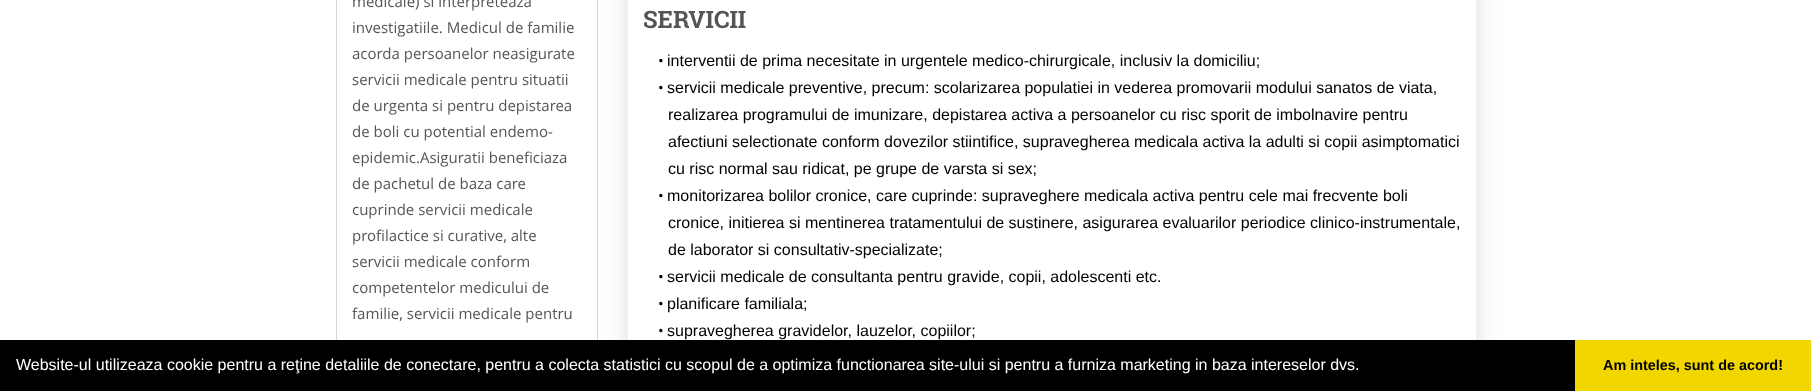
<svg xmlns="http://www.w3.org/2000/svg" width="1811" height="391">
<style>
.a{font:15px Open Sans;fill:#555}
.b{font:bold 24px Roboto Slab;fill:#555}
.c{font:15px Open Sans;fill:#000}
.d{font:16px Liberation Sans;fill:#000}
.e{font:16px Liberation Sans;fill:#fff}
.f{font:bold 14.4px Liberation Sans;fill:#000}
</style>
<defs>
<clipPath id="clip1"><path d="M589 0h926v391h-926zm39-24h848v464h-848z" clip-rule="evenodd"/></clipPath>
</defs>
<rect width="100%" height="100%" fill="#fff"/>
<path fill="none" stroke="#d6d6d6" d="M336.5 -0.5h261v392H336.5z"/>
<g clip-path="url(#clip1)">
<path fill="#ddd" filter="blur(12.5px)" d="M628 -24h848v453H628z"/>
</g>
<path fill="#000" d="M0 340h1575v51H0z"/>
<path fill="#f1d600" d="M1575 340h236v51H1575z"/>
<text class="a" x="352" y="7">medicale) si interpreteaza</text>
<text class="a" x="352" y="33">investigatiile. Medicul de familie</text>
<text class="a" x="352" y="59">acorda persoanelor neasigurate</text>
<text class="a" x="352" y="85">servicii medicale pentru situatii</text>
<text class="a" x="352" y="111">de urgenta si pentru depistarea</text>
<text class="a" x="352" y="137">de boli cu potential endemo-</text>
<text class="a" x="352" y="163">epidemic.Asiguratii beneficiaza</text>
<text class="a" x="352" y="189">de pachetul de baza care</text>
<text class="a" x="352" y="215">cuprinde servicii medicale</text>
<text class="a" x="352" y="241">profilactice si curative, alte</text>
<text class="a" x="352" y="267">servicii medicale conform</text>
<text class="a" x="352" y="293">competentelor medicului de</text>
<text class="a" x="352" y="319">familie, servicii medicale pentru</text>
<text class="b" x="643" y="28">SERVICII</text>
<text class="c" x="658" y="66">•</text>
<text class="d" x="667" y="66">interventii de prima necesitate in urgentele medico-chirurgicale, inclusiv la domiciliu;</text>
<text class="c" x="658" y="93">•</text>
<text class="d" x="667" y="93">servicii medicale preventive, precum: scolarizarea populatiei in vederea promovarii modului sanatos de viata,</text>
<text class="d" x="668" y="120">realizarea programului de imunizare, depistarea activa a persoanelor cu risc sporit de imbolnavire pentru</text>
<text class="d" x="668" y="147">afectiuni selectionate conform dovezilor stiintifice, supravegherea medicala activa la adulti si copii asimptomatici</text>
<text class="d" x="668" y="174">cu risc normal sau ridicat, pe grupe de varsta si sex;</text>
<text class="c" x="658" y="201">•</text>
<text class="d" x="667" y="201">monitorizarea bolilor cronice, care cuprinde: supraveghere medicala activa pentru cele mai frecvente boli</text>
<text class="d" x="668" y="228">cronice, initierea si mentinerea tratamentului de sustinere, asigurarea evaluarilor periodice clinico-instrumentale,</text>
<text class="d" x="668" y="255">de laborator si consultativ-specializate;</text>
<text class="c" x="658" y="282">•</text>
<text class="d" x="667" y="282">servicii medicale de consultanta pentru gravide, copii, adolescenti etc.</text>
<text class="c" x="658" y="309">•</text>
<text class="d" x="667" y="309">planificare familiala;</text>
<text class="c" x="658" y="336">•</text>
<text class="d" x="667" y="336">supravegherea gravidelor, lauzelor, copiilor;</text>
<text class="e" x="16" y="370">Website-ul utilizeaza cookie pentru a reţine detaliile de conectare, pentru a colecta statistici cu scopul de a optimiza functionarea site-ului si pentru a furniza marketing in baza intereselor dvs.</text>
<text class="f" x="1603" y="370">Am inteles, sunt de acord!</text>
</svg>
